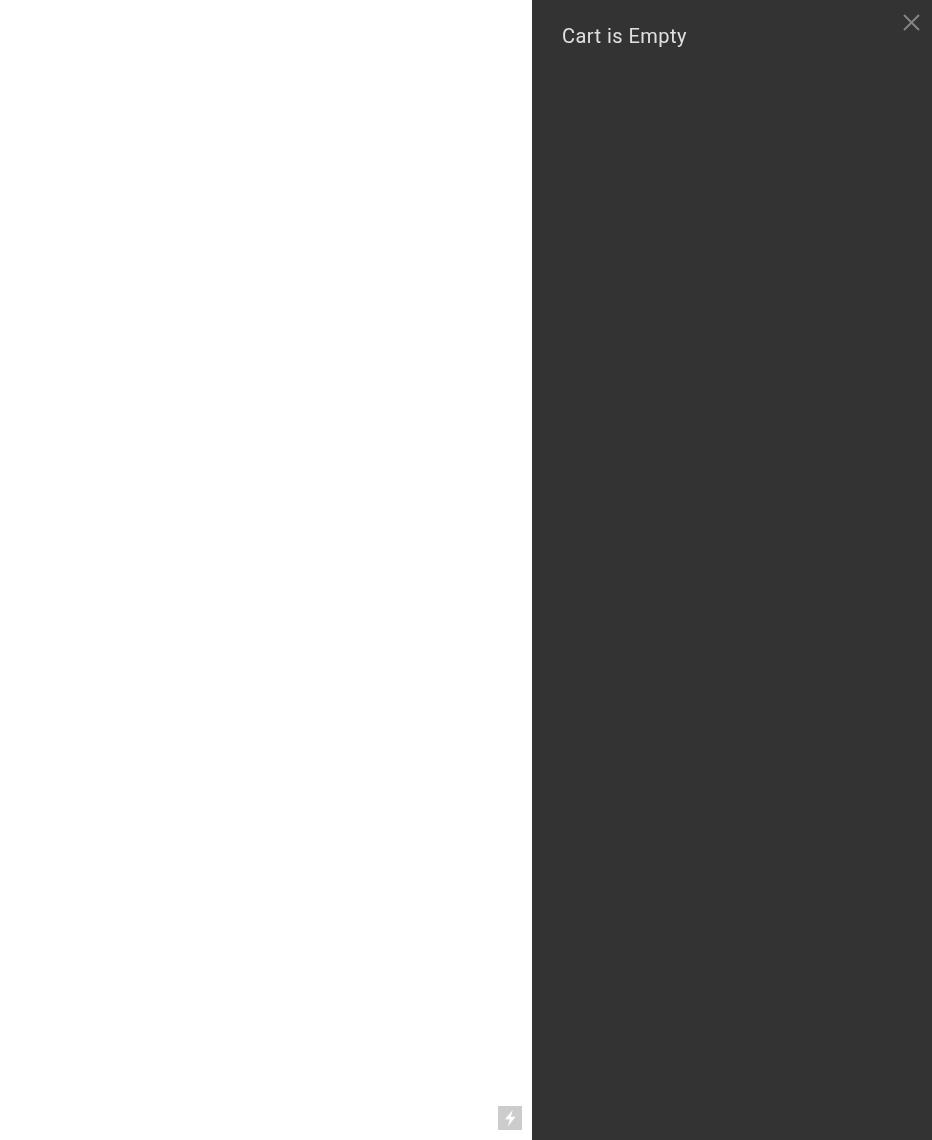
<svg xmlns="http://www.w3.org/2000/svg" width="932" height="1140">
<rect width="100%" height="100%" fill="#fff"/>
<path fill="#ccc" d="M498 1106h24v24H498z"/>
<image href="1.png" x="505" y="1110" width="11" height="16"/>
<path fill="#333" d="M532 0h400v1140H532z"/>
<image href="2.png" x="563" y="14" width="357" height="33"/>
</svg>
